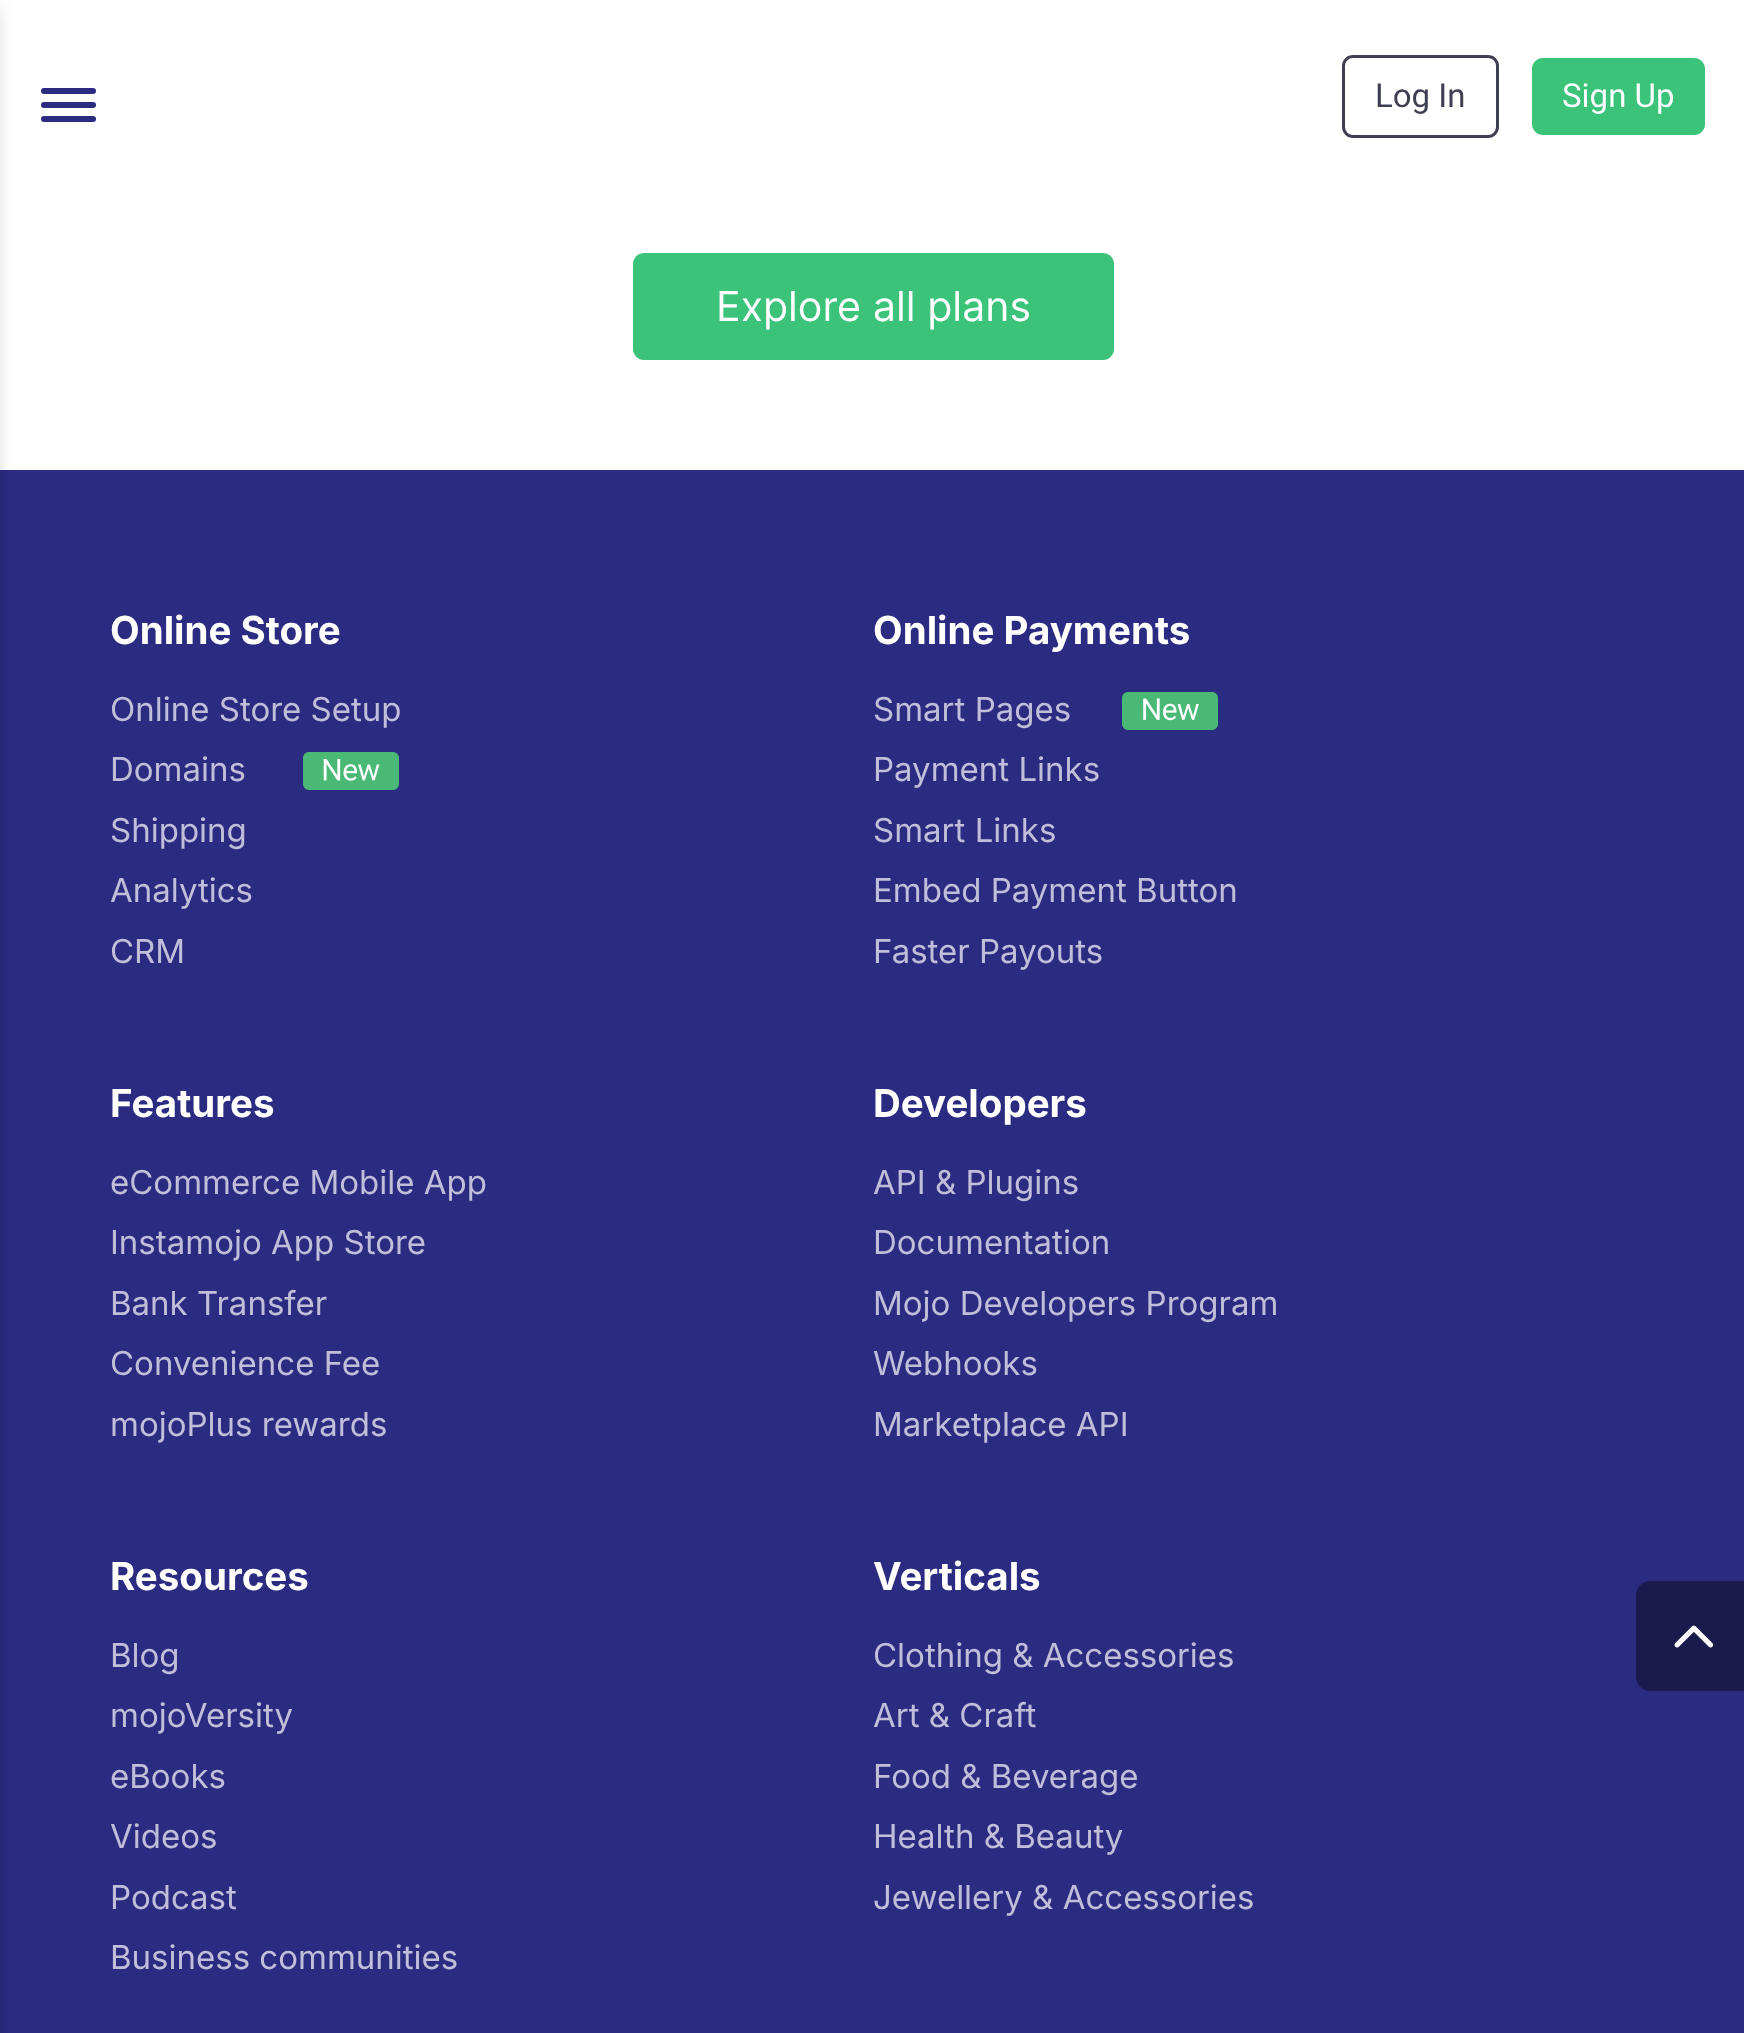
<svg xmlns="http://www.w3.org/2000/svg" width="1744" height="2033">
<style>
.a{font:33px Roboto;fill:#3f3f52}
.b{font:33px Roboto;fill:#fff}
.c{font:41.25px Inter;fill:#fff}
.d{font:bold 38.5px Inter;fill:#fff}
.e{font:33px 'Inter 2';fill:#bfbfd9}
</style>
<rect width="100%" height="100%" fill="#fff"/>
<path fill="#2b2b81" d="M0 470h1744v1563H0z"/>
<path fill="#0000001f" filter="blur(8px)" d="M-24 8h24v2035H-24z"/>
<rect fill="#2b2b81" x="41" y="102" width="55" height="6" rx="3"/>
<rect fill="#2b2b81" x="41" y="88" width="55" height="6" rx="3"/>
<rect fill="#2b2b81" x="41" y="116" width="55" height="6" rx="3"/>
<rect fill="none" stroke="#3f3f52" stroke-width="3" x="1343.5" y="56.5" width="154" height="80" rx="9.5"/>
<rect fill="#3ac379" x="1532" y="58" width="173" height="77" rx="11"/>
<rect fill="#3ac379" x="633" y="253" width="481" height="107" rx="11"/>
<image href="1.png" x="303" y="752" width="96" height="38"/>
<image href="2.png" x="1122" y="692" width="96" height="38"/>
<path fill="#1a1a4d" d="M1650 1581h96v110h-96c-7.5 0-14-6.5-14-14v-82c0-7.5 6.5-14 14-14z"/>
<image href="3.png" x="1674" y="1625" width="40" height="23"/>
<text class="a" x="1375" y="107">Log In</text>
<text class="b" x="1562" y="107">Sign Up</text>
<text class="c" x="716" y="321">Explore all plans</text>
<text class="d" x="110" y="644">Online Store</text>
<text class="e" x="110" y="721">Online Store Setup</text>
<text class="e" x="110" y="781">Domains</text>
<text class="e" x="110" y="842">Shipping</text>
<text class="e" x="110" y="902">Analytics</text>
<text class="e" x="110" y="963">CRM</text>
<text class="d" x="873" y="644">Online Payments</text>
<text class="e" x="873" y="721">Smart Pages</text>
<text class="e" x="873" y="781">Payment Links</text>
<text class="e" x="873" y="842">Smart Links</text>
<text class="e" x="873" y="902">Embed Payment Button</text>
<text class="e" x="873" y="963">Faster Payouts</text>
<text class="d" x="110" y="1117">Features</text>
<text class="e" x="110" y="1194">eCommerce Mobile App</text>
<text class="e" x="110" y="1254">Instamojo App Store</text>
<text class="e" x="110" y="1315">Bank Transfer</text>
<text class="e" x="110" y="1375">Convenience Fee</text>
<text class="e" x="110" y="1436">mojoPlus rewards</text>
<text class="d" x="873" y="1117">Developers</text>
<text class="e" x="873" y="1194">API &amp; Plugins</text>
<text class="e" x="873" y="1254">Documentation</text>
<text class="e" x="873" y="1315">Mojo Developers Program</text>
<text class="e" x="873" y="1375">Webhooks</text>
<text class="e" x="873" y="1436">Marketplace API</text>
<text class="d" x="110" y="1590">Resources</text>
<text class="e" x="110" y="1667">Blog</text>
<text class="e" x="110" y="1727">mojoVersity</text>
<text class="e" x="110" y="1788">eBooks</text>
<text class="e" x="110" y="1848">Videos</text>
<text class="e" x="110" y="1909">Podcast</text>
<text class="e" x="110" y="1969">Business communities</text>
<text class="d" x="873" y="1590">Verticals</text>
<text class="e" x="873" y="1667">Clothing &amp; Accessories</text>
<text class="e" x="873" y="1727">Art &amp; Craft</text>
<text class="e" x="873" y="1788">Food &amp; Beverage</text>
<text class="e" x="873" y="1848">Health &amp; Beauty</text>
<text class="e" x="873" y="1909">Jewellery &amp; Accessories</text>
</svg>
